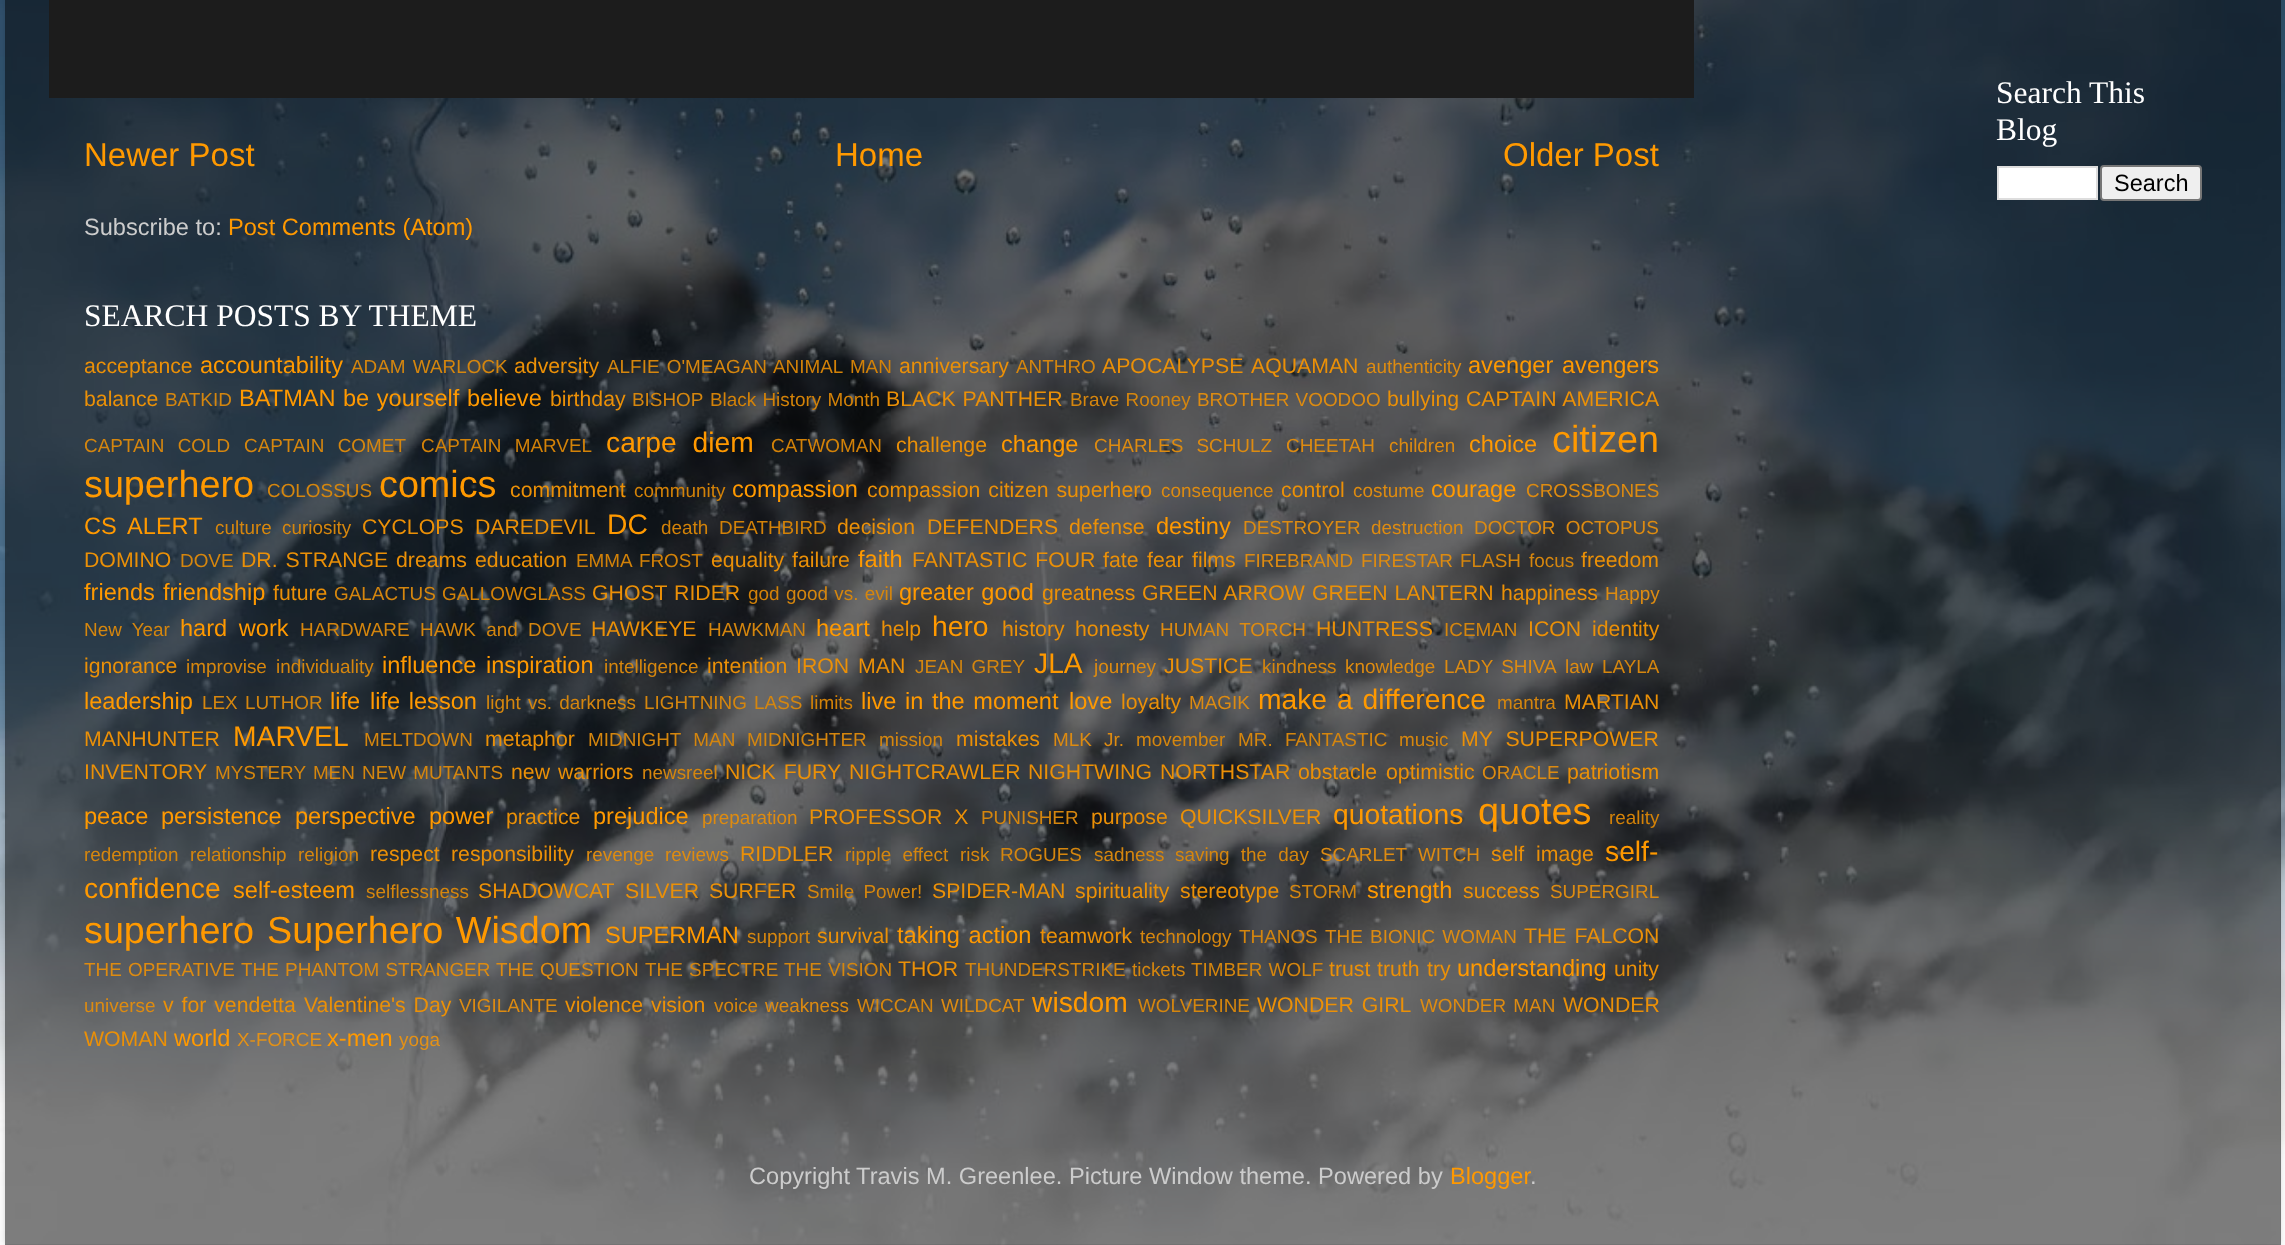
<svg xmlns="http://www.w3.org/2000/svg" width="2285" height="1245">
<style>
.a{font:33px Liberation Sans;fill:#f90}
.b{font:23.6px Liberation Sans;fill:#ccc}
.c{font:23.6px Liberation Sans;fill:#f90}
.d{font:31.5px Liberation Serif;fill:#fff}
.e{font:21.25px Liberation Sans;fill:#eb9007}
.f{font:18.9px Liberation Sans;fill:#d5860e}
.g{font:18.9px Liberation Sans;fill:#d38208}
.h{font:18.9px Liberation Sans;fill:#dd8b11}
.i{font:28.25px Liberation Sans;fill:#f90}
.j{font:37.75px Liberation Sans;fill:#f90}
.k{font:18.9px Liberation Sans;fill:#e39117}
.l{font:23.5px Liberation Sans;fill:#000}
</style>
<defs>
<clipPath id="clip1"><path d="M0 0h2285v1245h-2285zm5-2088h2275v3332h-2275z" clip-rule="evenodd"/></clipPath>
</defs>
<rect width="100%" height="100%" fill="#fff"/>
<image href="1.png" x="0" y="0" width="2285" height="1245"/>
<g clip-path="url(#clip1)">
<path fill="#00000026" filter="blur(2.5px)" d="M5 -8h2275v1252H5z"/>
</g>
<path fill="#00000080" d="M5 0h2276v1245H5z"/>
<path fill="#1c1c1c" d="M49 0h1645v98H49z"/>
<path fill="#fff" stroke="#ddd" stroke-width="2" d="M1998 167h99v32H1998z"/>
<rect fill="#efefef" stroke="#767676" stroke-width="2" x="2101" y="166" width="100" height="34" rx="3"/>
<text class="a" x="84" y="166">Newer Post</text>
<text class="a" x="835" y="166">Home</text>
<text class="a" x="1503" y="166">Older Post</text>
<text class="b" x="84" y="235">Subscribe to:</text>
<text class="c" x="228" y="235">Post Comments (Atom)</text>
<text class="d" x="84" y="326">SEARCH POSTS BY THEME</text>
<text class="e" x="84" y="373">acceptance</text>
<text class="c" x="200" y="373">accountability</text>
<text class="f" x="351" y="373" word-spacing="2">ADAM WARLOCK</text>
<text class="e" x="514" y="373">adversity</text>
<text class="f" x="607" y="373" word-spacing="2">ALFIE O'MEAGAN</text>
<text class="g" x="773" y="373" word-spacing="2">ANIMAL MAN</text>
<text class="e" x="899" y="373">anniversary</text>
<text class="f" x="1016" y="373">ANTHRO</text>
<text class="e" x="1102" y="373">APOCALYPSE</text>
<text class="e" x="1251" y="373">AQUAMAN</text>
<text class="h" x="1366" y="373">authenticity</text>
<text class="c" x="1468" y="373">avenger</text>
<text class="c" x="1562" y="373">avengers</text>
<text class="e" x="84" y="406">balance</text>
<text class="f" x="165" y="406">BATKID</text>
<text class="c" x="239" y="406">BATMAN</text>
<text class="c" x="343" y="406" word-spacing="1">be yourself</text>
<text class="c" x="467" y="406">believe</text>
<text class="e" x="550" y="406">birthday</text>
<text class="f" x="632" y="406">BISHOP</text>
<text class="g" x="710" y="406" word-spacing="1">Black History Month</text>
<text class="e" x="886" y="406" word-spacing="1">BLACK PANTHER</text>
<text class="f" x="1070" y="406" word-spacing="1">Brave Rooney</text>
<text class="h" x="1197" y="406" word-spacing="1">BROTHER VOODOO</text>
<text class="e" x="1387" y="406">bullying</text>
<text class="e" x="1466" y="406" word-spacing="1">CAPTAIN AMERICA</text>
<text class="f" x="84" y="452" word-spacing="8">CAPTAIN COLD</text>
<text class="f" x="244" y="452" word-spacing="8">CAPTAIN COMET</text>
<text class="g" x="421" y="452" word-spacing="8">CAPTAIN MARVEL</text>
<text class="i" x="606" y="452" word-spacing="8">carpe diem</text>
<text class="g" x="771" y="452">CATWOMAN</text>
<text class="e" x="896" y="452">challenge</text>
<text class="c" x="1001" y="452">change</text>
<text class="h" x="1094" y="452" word-spacing="8">CHARLES SCHULZ</text>
<text class="h" x="1286" y="452">CHEETAH</text>
<text class="h" x="1389" y="452">children</text>
<text class="c" x="1469" y="452">choice</text>
<text class="j" x="1552" y="452">citizen</text>
<text class="j" x="84" y="497">superhero</text>
<text class="f" x="267" y="497">COLOSSUS</text>
<text class="j" x="379" y="497">comics</text>
<text class="e" x="510" y="497">commitment</text>
<text class="g" x="634" y="497">community</text>
<text class="c" x="732" y="497">compassion</text>
<text class="e" x="867" y="497" word-spacing="2">compassion citizen superhero</text>
<text class="h" x="1161" y="497">consequence</text>
<text class="e" x="1281" y="497">control</text>
<text class="h" x="1353" y="497">costume</text>
<text class="c" x="1431" y="497">courage</text>
<text class="h" x="1526" y="497">CROSSBONES</text>
<text class="c" x="84" y="534" word-spacing="5">CS ALERT</text>
<text class="f" x="215" y="534">culture</text>
<text class="f" x="282" y="534">curiosity</text>
<text class="e" x="362" y="534">CYCLOPS</text>
<text class="e" x="475" y="534">DAREDEVIL</text>
<text class="i" x="607" y="534">DC</text>
<text class="g" x="661" y="534">death</text>
<text class="g" x="719" y="534">DEATHBIRD</text>
<text class="e" x="837" y="534">decision</text>
<text class="e" x="927" y="534">DEFENDERS</text>
<text class="e" x="1069" y="534">defense</text>
<text class="c" x="1156" y="534">destiny</text>
<text class="h" x="1243" y="534">DESTROYER</text>
<text class="h" x="1371" y="534">destruction</text>
<text class="h" x="1474" y="534" word-spacing="5">DOCTOR OCTOPUS</text>
<text class="e" x="84" y="567">DOMINO</text>
<text class="f" x="180" y="567">DOVE</text>
<text class="e" x="241" y="567" word-spacing="2">DR. STRANGE</text>
<text class="e" x="396" y="567">dreams</text>
<text class="e" x="475" y="567">education</text>
<text class="g" x="576" y="567" word-spacing="2">EMMA FROST</text>
<text class="e" x="711" y="567">equality</text>
<text class="e" x="792" y="567">failure</text>
<text class="c" x="858" y="567">faith</text>
<text class="e" x="912" y="567" word-spacing="2">FANTASTIC FOUR</text>
<text class="e" x="1103" y="567">fate</text>
<text class="e" x="1147" y="567">fear</text>
<text class="e" x="1192" y="567">films</text>
<text class="h" x="1244" y="567">FIREBRAND</text>
<text class="h" x="1361" y="567">FIRESTAR</text>
<text class="f" x="1460" y="567">FLASH</text>
<text class="f" x="1529" y="567">focus</text>
<text class="e" x="1581" y="567">freedom</text>
<text class="c" x="84" y="600">friends</text>
<text class="c" x="163" y="600">friendship</text>
<text class="e" x="273" y="600">future</text>
<text class="f" x="334" y="600">GALACTUS</text>
<text class="g" x="442" y="600">GALLOWGLASS</text>
<text class="e" x="592" y="600" word-spacing="1">GHOST RIDER</text>
<text class="g" x="748" y="600">god</text>
<text class="f" x="786" y="600" word-spacing="1">good vs. evil</text>
<text class="c" x="899" y="600" word-spacing="1">greater good</text>
<text class="e" x="1042" y="600">greatness</text>
<text class="e" x="1142" y="600" word-spacing="1">GREEN ARROW</text>
<text class="e" x="1312" y="600" word-spacing="1">GREEN LANTERN</text>
<text class="e" x="1501" y="600">happiness</text>
<text class="h" x="1605" y="600">Happy</text>
<text class="f" x="84" y="636" word-spacing="5">New Year</text>
<text class="c" x="180" y="636" word-spacing="5">hard work</text>
<text class="f" x="300" y="636">HARDWARE</text>
<text class="f" x="420" y="636" word-spacing="5">HAWK and DOVE</text>
<text class="e" x="591" y="636">HAWKEYE</text>
<text class="f" x="708" y="636">HAWKMAN</text>
<text class="c" x="816" y="636">heart</text>
<text class="e" x="881" y="636">help</text>
<text class="i" x="932" y="636">hero</text>
<text class="e" x="1002" y="636">history</text>
<text class="e" x="1075" y="636">honesty</text>
<text class="h" x="1160" y="636" word-spacing="5">HUMAN TORCH</text>
<text class="e" x="1316" y="636">HUNTRESS</text>
<text class="f" x="1444" y="636">ICEMAN</text>
<text class="e" x="1528" y="636">ICON</text>
<text class="e" x="1592" y="636">identity</text>
<text class="e" x="84" y="673">ignorance</text>
<text class="f" x="186" y="673">improvise</text>
<text class="f" x="276" y="673">individuality</text>
<text class="c" x="382" y="673">influence</text>
<text class="c" x="486" y="673">inspiration</text>
<text class="f" x="604" y="673">intelligence</text>
<text class="e" x="707" y="673">intention</text>
<text class="e" x="796" y="673" word-spacing="3">IRON MAN</text>
<text class="f" x="915" y="673" word-spacing="3">JEAN GREY</text>
<text class="i" x="1034" y="673">JLA</text>
<text class="h" x="1094" y="673">journey</text>
<text class="e" x="1164" y="673">JUSTICE</text>
<text class="f" x="1262" y="673">kindness</text>
<text class="h" x="1345" y="673">knowledge</text>
<text class="h" x="1444" y="673" word-spacing="3">LADY SHIVA</text>
<text class="h" x="1565" y="673">law</text>
<text class="f" x="1602" y="673">LAYLA</text>
<text class="c" x="84" y="709">leadership</text>
<text class="f" x="202" y="709" word-spacing="2">LEX LUTHOR</text>
<text class="c" x="330" y="709">life</text>
<text class="c" x="370" y="709" word-spacing="2">life lesson</text>
<text class="f" x="486" y="709" word-spacing="2">light vs. darkness</text>
<text class="f" x="644" y="709" word-spacing="2">LIGHTNING LASS</text>
<text class="g" x="810" y="709">limits</text>
<text class="c" x="861" y="709" word-spacing="2">live in the moment</text>
<text class="c" x="1069" y="709">love</text>
<text class="e" x="1121" y="709">loyalty</text>
<text class="h" x="1189" y="709">MAGIK</text>
<text class="i" x="1258" y="709" word-spacing="2">make a difference</text>
<text class="f" x="1497" y="709">mantra</text>
<text class="e" x="1564" y="709">MARTIAN</text>
<text class="e" x="84" y="746">MANHUNTER</text>
<text class="i" x="233" y="746">MARVEL</text>
<text class="f" x="364" y="746">MELTDOWN</text>
<text class="e" x="485" y="746">metaphor</text>
<text class="f" x="588" y="746" word-spacing="7">MIDNIGHT MAN</text>
<text class="f" x="747" y="746">MIDNIGHTER</text>
<text class="f" x="879" y="746">mission</text>
<text class="e" x="956" y="746">mistakes</text>
<text class="h" x="1053" y="746" word-spacing="7">MLK Jr.</text>
<text class="f" x="1136" y="746">movember</text>
<text class="f" x="1238" y="746" word-spacing="7">MR. FANTASTIC</text>
<text class="f" x="1399" y="746">music</text>
<text class="e" x="1461" y="746" word-spacing="7">MY SUPERPOWER</text>
<text class="e" x="84" y="779">INVENTORY</text>
<text class="f" x="215" y="779" word-spacing="2">MYSTERY MEN</text>
<text class="f" x="362" y="779" word-spacing="2">NEW MUTANTS</text>
<text class="e" x="511" y="779" word-spacing="2">new warriors</text>
<text class="f" x="642" y="779">newsreel</text>
<text class="e" x="725" y="779" word-spacing="2">NICK FURY</text>
<text class="e" x="849" y="779">NIGHTCRAWLER</text>
<text class="e" x="1028" y="779">NIGHTWING</text>
<text class="e" x="1160" y="779">NORTHSTAR</text>
<text class="e" x="1298" y="779">obstacle</text>
<text class="e" x="1386" y="779">optimistic</text>
<text class="h" x="1482" y="779">ORACLE</text>
<text class="e" x="1567" y="779">patriotism</text>
<text class="c" x="84" y="824">peace</text>
<text class="c" x="161" y="824">persistence</text>
<text class="c" x="295" y="824">perspective</text>
<text class="c" x="429" y="824">power</text>
<text class="e" x="506" y="824">practice</text>
<text class="c" x="593" y="824">prejudice</text>
<text class="h" x="702" y="824">preparation</text>
<text class="e" x="809" y="824" word-spacing="6">PROFESSOR X</text>
<text class="f" x="981" y="824">PUNISHER</text>
<text class="e" x="1091" y="824">purpose</text>
<text class="e" x="1180" y="824">QUICKSILVER</text>
<text class="i" x="1333" y="824">quotations</text>
<text class="j" x="1478" y="824">quotes</text>
<text class="g" x="1609" y="824">reality</text>
<text class="f" x="84" y="861">redemption</text>
<text class="f" x="190" y="861">relationship</text>
<text class="f" x="298" y="861">religion</text>
<text class="e" x="370" y="861">respect</text>
<text class="e" x="451" y="861">responsibility</text>
<text class="h" x="586" y="861">revenge</text>
<text class="h" x="665" y="861">reviews</text>
<text class="e" x="740" y="861">RIDDLER</text>
<text class="f" x="845" y="861" word-spacing="6">ripple effect</text>
<text class="f" x="960" y="861">risk</text>
<text class="f" x="1000" y="861">ROGUES</text>
<text class="f" x="1094" y="861">sadness</text>
<text class="f" x="1175" y="861" word-spacing="6">saving the day</text>
<text class="h" x="1320" y="861" word-spacing="6">SCARLET WITCH</text>
<text class="e" x="1491" y="861" word-spacing="6">self image</text>
<text class="i" x="1605" y="861">self-</text>
<text class="i" x="84" y="898">confidence</text>
<text class="c" x="233" y="898">self-esteem</text>
<text class="f" x="366" y="898">selflessness</text>
<text class="e" x="478" y="898">SHADOWCAT</text>
<text class="e" x="625" y="898" word-spacing="4">SILVER SURFER</text>
<text class="f" x="807" y="898" word-spacing="4">Smile Power!</text>
<text class="e" x="932" y="898">SPIDER-MAN</text>
<text class="e" x="1075" y="898">spirituality</text>
<text class="e" x="1180" y="898">stereotype</text>
<text class="f" x="1289" y="898">STORM</text>
<text class="c" x="1367" y="898">strength</text>
<text class="e" x="1463" y="898">success</text>
<text class="h" x="1550" y="898">SUPERGIRL</text>
<text class="j" x="84" y="943">superhero</text>
<text class="j" x="267" y="943" word-spacing="2">Superhero Wisdom</text>
<text class="c" x="605" y="943">SUPERMAN</text>
<text class="f" x="747" y="943">support</text>
<text class="e" x="817" y="943">survival</text>
<text class="c" x="897" y="943" word-spacing="2">taking action</text>
<text class="e" x="1040" y="943">teamwork</text>
<text class="f" x="1140" y="943">technology</text>
<text class="f" x="1239" y="943">THANOS</text>
<text class="h" x="1325" y="943" word-spacing="2">THE BIONIC WOMAN</text>
<text class="e" x="1524" y="943" word-spacing="2">THE FALCON</text>
<text class="h" x="84" y="976" word-spacing="1">THE OPERATIVE</text>
<text class="h" x="241" y="976" word-spacing="1">THE PHANTOM STRANGER</text>
<text class="h" x="496" y="976" word-spacing="1">THE QUESTION</text>
<text class="f" x="645" y="976" word-spacing="1">THE SPECTRE</text>
<text class="f" x="784" y="976" word-spacing="1">THE VISION</text>
<text class="e" x="898" y="976">THOR</text>
<text class="f" x="965" y="976">THUNDERSTRIKE</text>
<text class="f" x="1132" y="976">tickets</text>
<text class="f" x="1191" y="976" word-spacing="1">TIMBER WOLF</text>
<text class="e" x="1329" y="976">trust</text>
<text class="e" x="1377" y="976">truth</text>
<text class="e" x="1427" y="976">try</text>
<text class="c" x="1457" y="976">understanding</text>
<text class="e" x="1614" y="976">unity</text>
<text class="h" x="84" y="1012">universe</text>
<text class="e" x="163" y="1012" word-spacing="2">v for vendetta</text>
<text class="e" x="304" y="1012" word-spacing="2">Valentine's Day</text>
<text class="h" x="459" y="1012">VIGILANTE</text>
<text class="e" x="565" y="1012">violence</text>
<text class="e" x="651" y="1012">vision</text>
<text class="f" x="714" y="1012">voice</text>
<text class="h" x="765" y="1012">weakness</text>
<text class="f" x="857" y="1012">WICCAN</text>
<text class="h" x="941" y="1012">WILDCAT</text>
<text class="i" x="1032" y="1012">wisdom</text>
<text class="f" x="1138" y="1012">WOLVERINE</text>
<text class="e" x="1257" y="1012" word-spacing="2">WONDER GIRL</text>
<text class="h" x="1420" y="1012" word-spacing="2">WONDER MAN</text>
<text class="e" x="1563" y="1012">WONDER</text>
<text class="e" x="84" y="1046">WOMAN</text>
<text class="c" x="174" y="1046">world</text>
<text class="k" x="237" y="1046">X-FORCE</text>
<text class="c" x="327" y="1046">x-men</text>
<text class="k" x="399" y="1046">yoga</text>
<text class="d" x="1996" y="103">Search This</text>
<text class="d" x="1996" y="140">Blog</text>
<text class="l" x="2114" y="191">Search</text>
<text class="b" x="749" y="1184">Copyright Travis M. Greenlee. Picture Window theme. Powered by</text>
<text class="c" x="1450" y="1184">Blogger</text>
<text class="b" x="1530" y="1184">.</text>
</svg>
